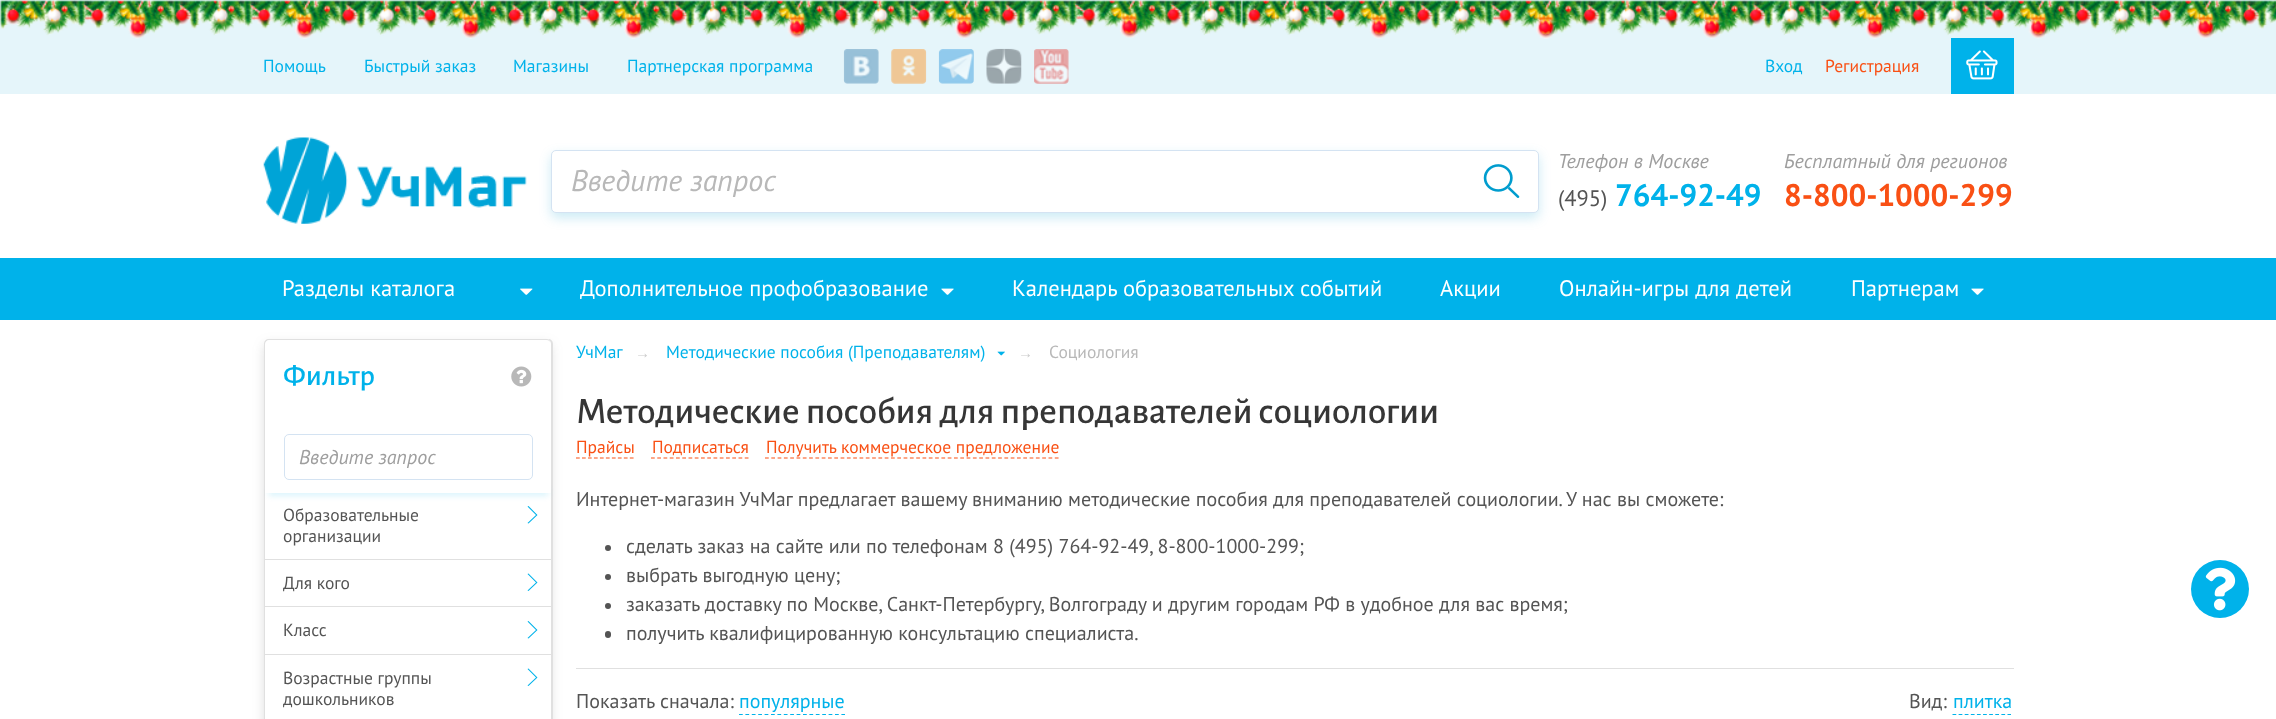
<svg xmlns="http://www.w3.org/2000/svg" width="2276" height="719">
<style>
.a{font:17.5px PT Sans;fill:#00b2ea}
.b{font:17.5px PT Sans;fill:#f95014}
.c{font:italic 30px PT Sans;fill:#b8b8b8}
.d{font:italic 20px PT Sans;fill:#9e9e9e}
.e{font:22.5px PT Sans;fill:#545454}
.f{font:bold 31.25px PT Sans;fill:#00b2ea}
.g{font:bold 31.25px PT Sans;fill:#f95014}
.h{font:22.5px PT Sans;fill:#fff}
.i{font:500 30px Alegreya Sans;fill:#00b2ea}
.j{font:17.5px PT Sans;fill:#545454}
.k{font:15px Liberation Serif;fill:#ccc}
.l{font:17.5px PT Sans;fill:#b8b8b8}
.m{font:500 37.5px Alegreya Sans;fill:#363636}
.n{font:20px PT Sans;fill:#545454}
.o{font:20px PT Sans;fill:#00b2ea}
</style>
<defs>
<clipPath id="clip1"><path d="M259 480h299v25h-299zm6 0h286v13h-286z" clip-rule="evenodd"/></clipPath>
</defs>
<rect width="100%" height="100%" fill="#fff"/>
<path fill="#e5f5fa" d="M0 0h2276v94H0z"/>
<image href="1.png" x="0" y="0" width="2276" height="39"/>
<image href="2.png" x="843" y="49" width="36" height="35"/>
<image href="3.png" x="891" y="49" width="36" height="35"/>
<image href="4.png" x="938" y="49" width="36" height="35"/>
<image href="5.png" x="986" y="48" width="36" height="36"/>
<image href="6.png" x="1034" y="49" width="35" height="35"/>
<path fill="#00b2ea" d="M1951 38h63v56H1951z"/>
<image href="7.png" x="1966" y="50" width="32" height="30"/>
<image href="8.png" x="263" y="137" width="264" height="87"/>
<rect fill="#009cce33" filter="blur(6px)" x="551" y="155" width="988" height="63" rx="5"/>
<rect fill="#fff" stroke="#d4e3f2" x="551.5" y="150.5" width="987" height="62" rx="4.5"/>
<image href="9.png" x="1483" y="164" width="37" height="34"/>
<path fill="#00b2ea" d="M0 258h2276v62H0z"/>
<image href="10.png" x="520" y="288" width="13" height="7"/>
<image href="11.png" x="941" y="288" width="13" height="7"/>
<image href="11.png" x="1971" y="288" width="13" height="7"/>
<rect fill="#55555533" filter="blur(6px)" x="264" y="344" width="287" height="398" rx="5"/>
<path fill="#e0e0e0" d="M268 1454h280c3 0 5-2 5-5v-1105c0-3-2-5-5-5c2 1 3 3 3 5v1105c0 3-2 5-5 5z"/>
<rect fill="#fff" x="264" y="339" width="287" height="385" rx="5"/>
<path fill="#e0e0e0" fill-rule="evenodd" d="M269 339h277c3 0 5 2 5 5v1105c0 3-2 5-5 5h-277c-3 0-5-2-5-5v-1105c0-3 2-5 5-5zm0 1h277c3 0 5 2 5 4v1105c0 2-2 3-5 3h-277c-2 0-4-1-4-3v-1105c0-2 2-4 4-4z"/>
<image href="12.png" x="511" y="366" width="21" height="21"/>
<rect fill="none" stroke="#d4e3f2" x="284.5" y="434.5" width="248" height="45" rx="4.5"/>
<g clip-path="url(#clip1)">
<path fill="#00b2ea33" filter="blur(3px)" d="M269 490h279v5H269z"/>
</g>
<path fill="#e0e0e0" d="M265 559h286v1H265z"/>
<path fill="#00b2ea" d="M528.5 523.5l-1-.5l8.5-8l-8.5-8.5l1-.5l9 9z"/>
<path fill="#e0e0e0" d="M265 606h286v1H265z"/>
<path fill="#00b2ea" d="M528.5 591l-1-.5l8.5-8l-8.5-8.5l1-.5l9 9z"/>
<path fill="#e0e0e0" d="M265 654h286v1H265z"/>
<path fill="#00b2ea" d="M528.5 638.5l-1-.5l8.5-8l-8.5-8.5l1-.5l9 9z"/>
<path fill="#00b2ea" d="M528.5 686l-1-.5l8.5-8l-8.5-8.5l1-.5l9 9z"/>
<image href="13.png" x="997" y="351" width="8" height="5"/>
<path fill="none" stroke="#f95014" stroke-width="1.2" stroke-dasharray="3.75 2.23" d="M576 458h58"/>
<path fill="none" stroke="#f95014" stroke-width="1.2" stroke-dasharray="3.75 2.5" d="M651 458h98"/>
<path fill="none" stroke="#f95014" stroke-width="1.2" stroke-dasharray="3.75 2.55" d="M765 458h294"/>
<circle fill="#545454" cx="608" cy="548" r="3"/>
<circle fill="#545454" cx="608" cy="577" r="3"/>
<circle fill="#545454" cx="608" cy="606" r="3"/>
<rect fill="#545454" x="605" y="631" width="6" height="7" rx="3"/>
<path fill="#e0e0e0" d="M576 668h1438v1H576z"/>
<path fill="none" stroke="#00b2ea" stroke-width="1.2" stroke-dasharray="3.75 2.65" d="M739 714.5h106"/>
<path fill="none" stroke="#00b2ea" stroke-width="1.2" stroke-dasharray="3.75 2.36" d="M1952.5 714.5h58.5"/>
<circle fill="#00b2ea" cx="2220" cy="589" r="29"/>
<image href="14.png" x="2205" y="567" width="31" height="44"/>
<text class="a" x="263" y="72">Помощь</text>
<text class="a" x="364" y="72">Быстрый заказ</text>
<text class="a" x="513" y="72">Магазины</text>
<text class="a" x="627" y="72">Партнерская программа</text>
<text class="a" x="1765" y="72">Вход</text>
<text class="b" x="1825" y="72">Регистрация</text>
<text class="c" x="571" y="191">Введите запрос</text>
<text class="d" x="1558" y="168">Телефон в Москве</text>
<text class="e" x="1558" y="206">(495)</text>
<text class="f" x="1615" y="206">764-92-49</text>
<text class="d" x="1784" y="168">Бесплатный для регионов</text>
<text class="g" x="1784" y="206">8-800-1000-299</text>
<text class="h" x="282" y="296">Разделы каталога</text>
<text class="h" x="580" y="296">Дополнительное профобразование</text>
<text class="h" x="1012" y="296">Календарь образовательных событий</text>
<text class="h" x="1440" y="296">Акции</text>
<text class="h" x="1559" y="296">Онлайн-игры для детей</text>
<text class="h" x="1851" y="296">Партнерам</text>
<text class="i" x="283" y="385">Фильтр</text>
<text class="d" x="299" y="464">Введите запрос</text>
<text class="j" x="283" y="521">Образовательные</text>
<text class="j" x="283" y="542">организации</text>
<text class="j" x="283" y="589">Для кого</text>
<text class="j" x="283" y="636">Класс</text>
<text class="j" x="283" y="684">Возрастные группы</text>
<text class="j" x="283" y="705">дошкольников</text>
<text class="a" x="576" y="358">УчМаг</text>
<text class="k" x="635" y="358">→</text>
<text class="a" x="666" y="358">Методические пособия (Преподавателям)</text>
<text class="k" x="1018" y="358">→</text>
<text class="l" x="1049" y="358">Социология</text>
<text class="m" x="576" y="423">Методические пособия для преподавателей социологии</text>
<text class="b" x="576" y="453">Прайсы</text>
<text class="b" x="652" y="453">Подписаться</text>
<text class="b" x="766" y="453">Получить коммерческое предложение</text>
<text class="n" x="576" y="506">Интернет-магазин УчМаг предлагает вашему вниманию методические пособия для преподавателей социологии. У нас вы сможете:</text>
<text class="n" x="626" y="553">сделать заказ на сайте или по телефонам 8 (495) 764-92-49, 8-800-1000-299;</text>
<text class="n" x="626" y="582">выбрать выгодную цену;</text>
<text class="n" x="626" y="611">заказать доставку по Москве, Санкт-Петербургу, Волгограду и другим городам РФ в удобное для вас время;</text>
<text class="n" x="626" y="640">получить квалифицированную консультацию специалиста.</text>
<text class="n" x="576" y="708">Показать cначала:</text>
<text class="o" x="739" y="708">популярные</text>
<text class="n" x="1909" y="708">Вид:</text>
<text class="o" x="1953" y="708">плитка</text>
</svg>
